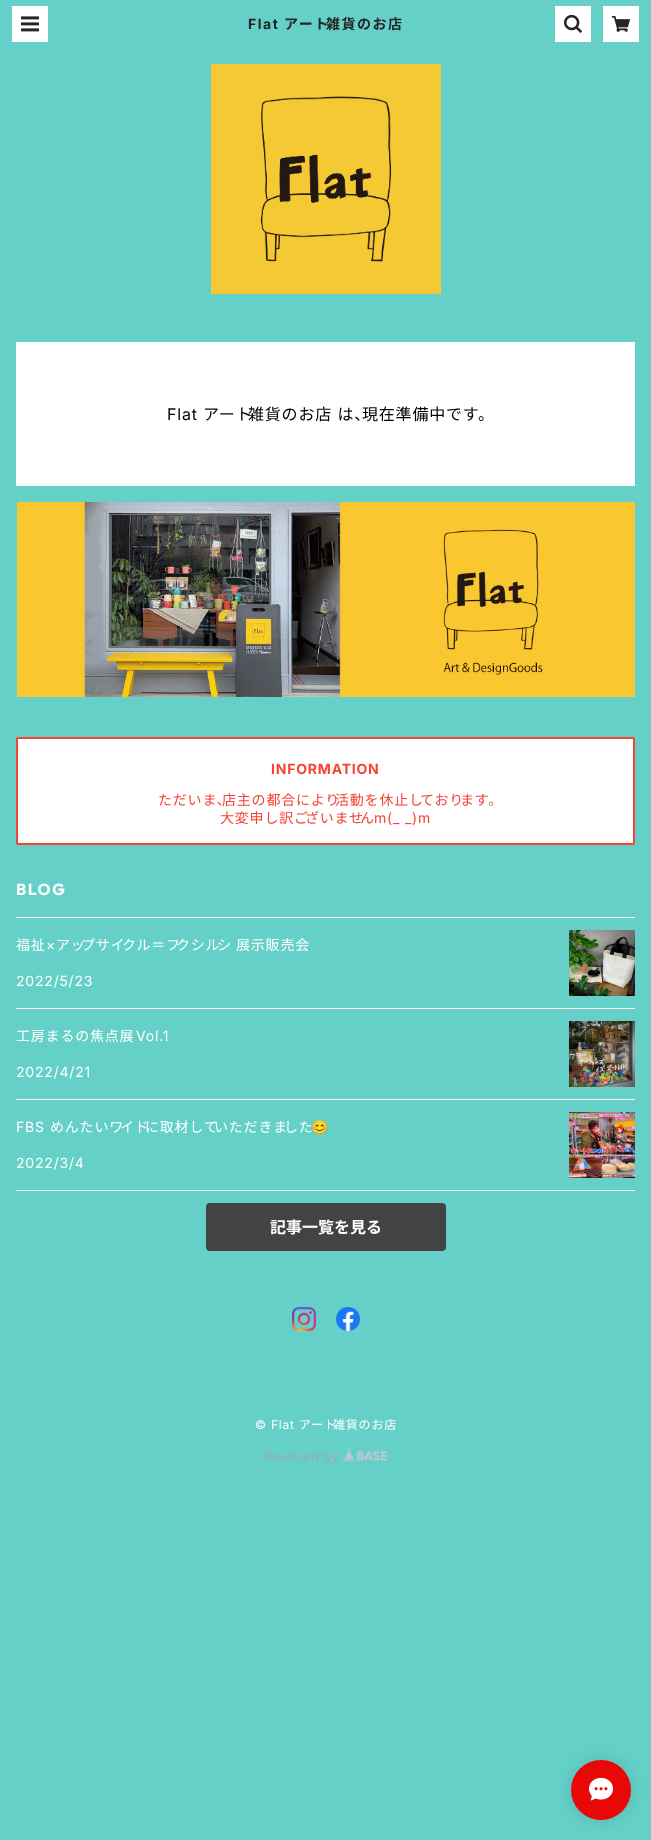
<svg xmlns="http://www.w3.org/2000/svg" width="651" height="1840">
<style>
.a{font:bold 14px Inter;letter-spacing:1.5px;fill:#252525}
.b{font:bold 14px Noto Sans JP;letter-spacing:1.5px;fill:#252525}
.c{font:16px Inter;letter-spacing:0.8px;fill:#000}
.d{font:16px Noto Sans JP;letter-spacing:0.8px;fill:#000}
.e{font:bold 14px Inter;letter-spacing:0.8px;fill:#f54336}
.f{font:14px Noto Sans JP;letter-spacing:0.8px;fill:#f54336}
.g{font:14px Inter;letter-spacing:0.8px;fill:#f54336}
.h{font:bold 16px Outfit;letter-spacing:1.5px;fill:#fff}
.i{font:14px Noto Sans JP;letter-spacing:0.8px;fill:#fff}
.j{font:14px Inter;letter-spacing:0.8px;fill:#fff}
.k{font:14px Noto Color Emoji;letter-spacing:0.8px;fill:#fff}
.l{font:bold 16px Noto Sans JP;fill:#fff}
.m{font:12px Inter;letter-spacing:0.8px;fill:#fff}
.n{font:12px Noto Sans JP;letter-spacing:0.8px;fill:#fff}
.o{font:12px Inter;letter-spacing:0.8px;fill:#a0a7b4}
</style>
<rect width="100%" height="100%" fill="#64d0c8"/>
<path fill="#fff" d="M12 6h36v36H12z"/>
<image href="1.png" x="21" y="16" width="18" height="16"/>
<path fill="#fff" d="M555 6h36v36H555z"/>
<image href="2.png" x="564" y="14" width="18" height="19"/>
<path fill="#fff" d="M603 6h36v36H603z"/>
<image href="3.png" x="612" y="16" width="18" height="16"/>
<image href="4.png" x="211" y="64" width="230" height="230"/>
<path fill="#fff" d="M16 342h619v144H16z"/>
<image href="5.png" x="17" y="502" width="618" height="195"/>
<rect fill="#fff" stroke="#f54336" stroke-width="2" x="17" y="738" width="617" height="106" rx="1"/>
<path fill="#fff" d="M16 1190h619v1H16z"/>
<path fill="#fff" d="M16 917h619v1H16z"/>
<image href="6.png" x="569" y="930" width="66" height="66"/>
<path fill="#fff" d="M16 1008h619v1H16z"/>
<image href="7.png" x="569" y="1021" width="66" height="66"/>
<path fill="#fff" d="M16 1099h619v1H16z"/>
<image href="8.png" x="569" y="1112" width="66" height="66"/>
<rect fill="#434343" x="206" y="1203" width="240" height="48" rx="4"/>
<image href="9.png" x="292" y="1307" width="24" height="24"/>
<image href="10.png" x="336" y="1307" width="24" height="24"/>
<image href="11.png" x="343" y="1448" width="44" height="13"/>
<rect fill="#33425833" filter="blur(7.5px)" x="571" y="1760" width="60" height="60" rx="30"/>
<circle fill="#e90808" cx="601" cy="1790" r="30"/>
<image href="12.png" x="589" y="1777" width="24" height="24"/>
<text class="a" x="248" y="29">Flat</text>
<text class="b" x="284" y="29">アート</text>
<text class="b" x="326" y="29">雑貨のお店</text>
<text class="c" x="167" y="420">Flat</text>
<text class="d" x="203" y="420" word-spacing="1">アート</text>
<text class="d" x="248" y="420" word-spacing="1">雑貨のお店 は、</text>
<text class="d" x="362" y="420" word-spacing="1">現在準備中です。</text>
<text class="e" x="271" y="774">INFORMATION</text>
<text class="f" x="158" y="805">ただいま、</text>
<text class="f" x="222" y="805">店主の都合により</text>
<text class="f" x="335" y="805">活動を休止し</text>
<text class="f" x="420" y="805">ており</text>
<text class="f" x="460" y="805">ます。</text>
<text class="f" x="220" y="823">大変申し訳ご</text>
<text class="f" x="305" y="823">ざいませ</text>
<text class="f" x="360" y="823">ん</text>
<text class="g" x="374" y="823">m(_ _)m</text>
<text class="h" x="16" y="895">BLOG</text>
<text class="i" x="16" y="950">福祉</text>
<text class="j" x="46" y="950">×</text>
<text class="i" x="56" y="950">アッ</text>
<text class="i" x="81" y="950">プサイ</text>
<text class="i" x="122" y="950">クル＝フ</text>
<text class="i" x="176" y="950">クシル</text>
<text class="i" x="217" y="950">シ</text>
<text class="i" x="236" y="950">展示販売会</text>
<text class="j" x="16" y="986">2022/5/23</text>
<text class="i" x="16" y="1041">工房まるの焦点展</text>
<text class="j" x="136" y="1041">Vol.1</text>
<text class="j" x="16" y="1077">2022/4/21</text>
<text class="j" x="16" y="1132">FBS</text>
<text class="i" x="50" y="1132">めんたいワ</text>
<text class="i" x="120" y="1132">イド</text>
<text class="i" x="145" y="1132">に取材して</text>
<text class="i" x="214" y="1132">いただきま</text>
<text class="i" x="284" y="1132">した</text>
<text class="k" x="311" y="1132">😊</text>
<text class="j" x="16" y="1168">2022/3/4</text>
<text class="l" x="270" y="1233">記事一覧を見る</text>
<text class="m" x="255" y="1429">© Flat</text>
<text class="n" x="299" y="1429">アート</text>
<text class="n" x="333" y="1429">雑貨のお店</text>
<text class="o" x="264" y="1461">Powered by</text>
</svg>
